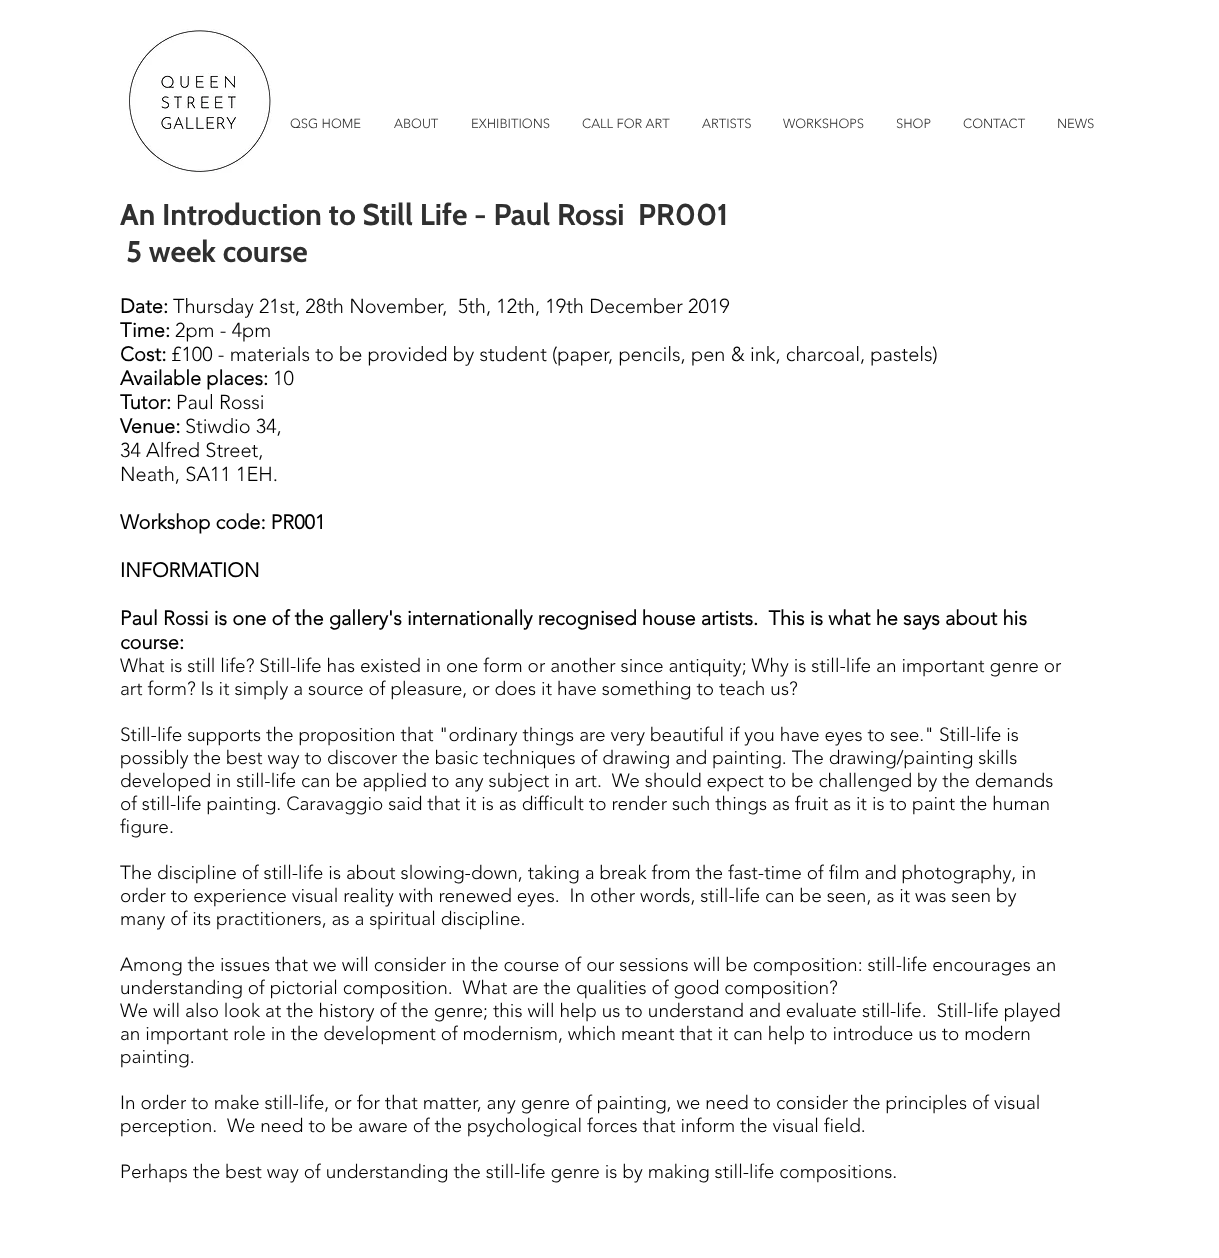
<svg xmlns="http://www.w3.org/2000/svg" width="1219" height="1258">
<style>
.a{font:300 13px 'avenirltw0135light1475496';fill:#303030}
.b{font:bold 30px Cabin;fill:#303030}
.c{font:bold 20px 'avenirltw0135light1475496';fill:#000}
.d{font:300 20px 'avenirltw0135light1475496';fill:#000}
.e{font:300 19px 'avenirltw0135light1475496';fill:#000}
</style>
<rect width="100%" height="100%" fill="#fff"/>
<image href="1.png" x="128" y="29" width="144" height="144"/>
<text class="a" x="290" y="128">QSG HOME</text>
<text class="a" x="394" y="128">ABOUT</text>
<text class="a" x="471" y="128">EXHIBITIONS</text>
<text class="a" x="582" y="128">CALL FOR ART</text>
<text class="a" x="702" y="128">ARTISTS</text>
<text class="a" x="783" y="128">WORKSHOPS</text>
<text class="a" x="896" y="128">SHOP</text>
<text class="a" x="963" y="128">CONTACT</text>
<text class="a" x="1057" y="128">NEWS</text>
<text class="b" xml:space="preserve" x="120" y="225">An Introduction to Still Life - Paul Rossi  PR001</text>
<text class="b" x="126" y="262">5 week course</text>
<text class="c" x="120" y="313">Date:</text>
<text class="d" xml:space="preserve" x="173" y="313">Thursday 21st, 28th November,  5th, 12th, 19th December 2019</text>
<text class="c" x="120" y="337">Time:</text>
<text class="d" x="175" y="337">2pm - 4pm</text>
<text class="c" x="120" y="361">Cost:</text>
<text class="d" x="171" y="361">£100 - materials to be provided by student (paper, pencils, pen &amp; ink, charcoal, pastels)</text>
<text class="c" x="120" y="385">Available places:</text>
<text class="d" x="273" y="385">10</text>
<text class="c" x="120" y="409">Tutor:</text>
<text class="d" x="176" y="409">Paul Rossi</text>
<text class="c" x="120" y="433">Venue:</text>
<text class="d" x="185" y="433">Stiwdio 34,</text>
<text class="d" x="120" y="457">34 Alfred Street,</text>
<text class="d" x="120" y="481">Neath, SA11 1EH.</text>
<text class="c" x="120" y="529">Workshop code: PR001</text>
<text class="c" x="120" y="577">INFORMATION</text>
<text class="c" xml:space="preserve" x="120" y="625">Paul Rossi is one of the gallery's internationally recognised house artists.  This is what he says about his</text>
<text class="c" x="120" y="649">course:</text>
<text class="e" x="120" y="672">What is still life? Still-life has existed in one form or another since antiquity; Why is still-life an important genre or</text>
<text class="e" x="120" y="695">art form? Is it simply a source of pleasure, or does it have something to teach us?</text>
<text class="e" x="120" y="741">Still-life supports the proposition that "ordinary things are very beautiful if you have eyes to see." Still-life is</text>
<text class="e" x="120" y="764">possibly the best way to discover the basic techniques of drawing and painting. The drawing/painting skills</text>
<text class="e" xml:space="preserve" x="120" y="787">developed in still-life can be applied to any subject in art.  We should expect to be challenged by the demands</text>
<text class="e" x="120" y="810">of still-life painting. Caravaggio said that it is as difficult to render such things as fruit as it is to paint the human</text>
<text class="e" x="120" y="833">figure.</text>
<text class="e" x="120" y="879">The discipline of still-life is about slowing-down, taking a break from the fast-time of film and photography, in</text>
<text class="e" xml:space="preserve" x="120" y="902">order to experience visual reality with renewed eyes.  In other words, still-life can be seen, as it was seen by</text>
<text class="e" x="120" y="925">many of its practitioners, as a spiritual discipline.</text>
<text class="e" x="120" y="971">Among the issues that we will consider in the course of our sessions will be composition: still-life encourages an</text>
<text class="e" xml:space="preserve" x="120" y="994">understanding of pictorial composition.  What are the qualities of good composition?</text>
<text class="e" xml:space="preserve" x="120" y="1017">We will also look at the history of the genre; this will help us to understand and evaluate still-life.  Still-life played</text>
<text class="e" x="120" y="1040">an important role in the development of modernism, which meant that it can help to introduce us to modern</text>
<text class="e" x="120" y="1063">painting.</text>
<text class="e" x="120" y="1109">In order to make still-life, or for that matter, any genre of painting, we need to consider the principles of visual</text>
<text class="e" xml:space="preserve" x="120" y="1132">perception.  We need to be aware of the psychological forces that inform the visual field.</text>
<text class="e" x="120" y="1178">Perhaps the best way of understanding the still-life genre is by making still-life compositions.</text>
</svg>
